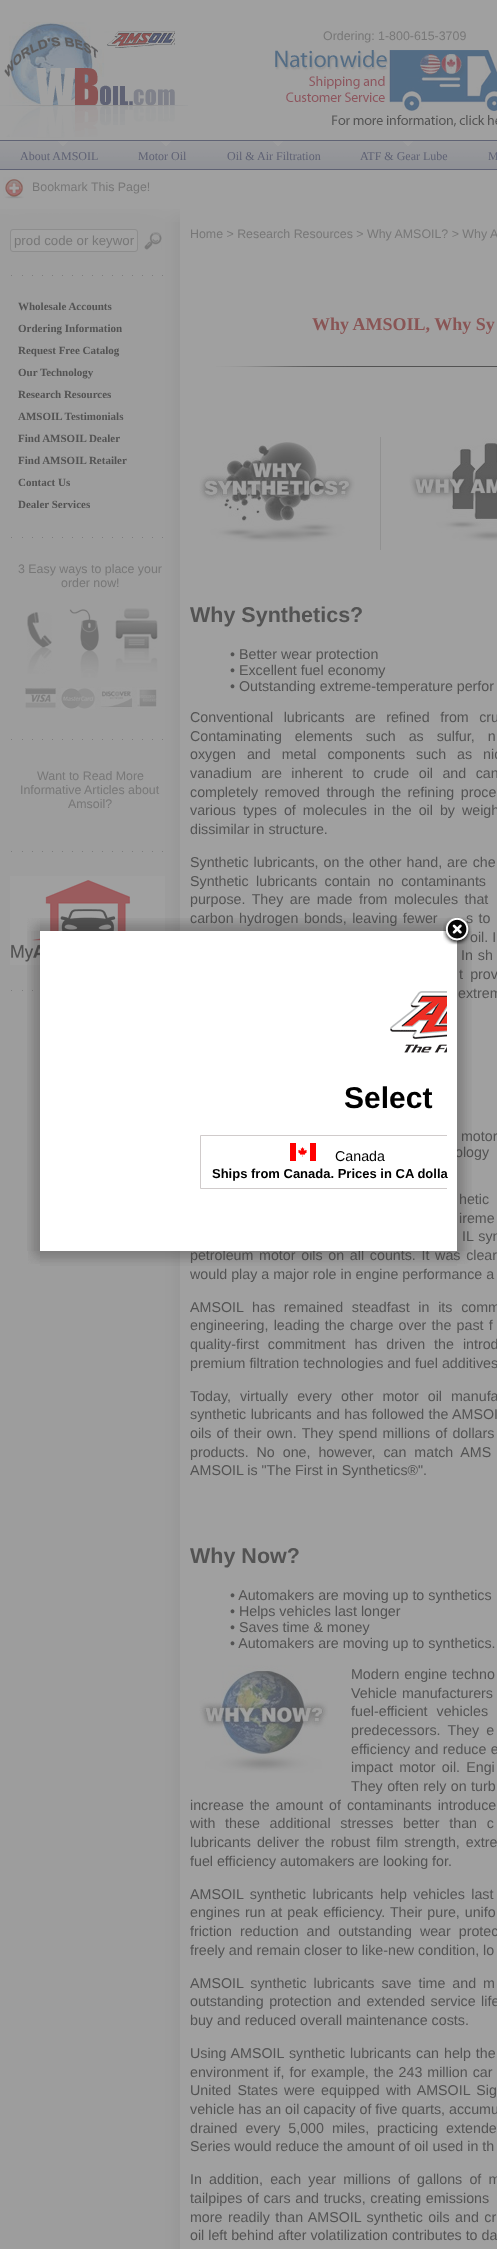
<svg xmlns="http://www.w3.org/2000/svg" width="497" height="2249">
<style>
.a{font:12.4px Liberation Sans;fill:#777}
.b{font:12px Liberation Serif;fill:#5f6274}
.c{font:13.25px Liberation Sans;fill:#777}
.d{font:bold 11px Liberation Serif;fill:#535353}
.e{font:bold 18px Liberation Serif;fill:#895555}
.f{font:bold 21.5px Liberation Sans;fill:#535353}
.g{font:14.25px Liberation Sans;fill:#535353}
.h{font:bold 30px Liberation Sans;fill:#000}
.i{font:bold 13px Liberation Sans;fill:#000}
.j{font:14.25px Liberation Sans;fill:#000}
</style>
<defs>
<clipPath id="clip1"><path d="M50 941h397v300H50z"/></clipPath>
</defs>
<rect width="100%" height="100%" fill="#a0a0a0"/>
<image href="1.png" x="0" y="22" width="188" height="116"/>
<image href="2.png" x="275" y="50" width="222" height="77"/>
<image href="3.png" x="0" y="141" width="497" height="28"/>
<path fill="#5f6274" d="M0 140h497v1H0z"/>
<path fill="#5f6274" d="M0 169h497v1H0z"/>
<path fill="#9d9d9e" d="M58 141h10v1H58z"/>
<path fill="#9d9d9e" d="M59 142h8v1H59z"/>
<path fill="#9d9d9e" d="M60 143h6v1H60z"/>
<path fill="#9d9d9e" d="M61 144h4v1H61z"/>
<path fill="#9d9d9e" d="M62 145h2v1H62z"/>
<path fill="#9d9d9e" d="M161 141h10v1H161z"/>
<path fill="#9d9d9e" d="M162 142h8v1H162z"/>
<path fill="#9d9d9e" d="M163 143h6v1H163z"/>
<path fill="#9d9d9e" d="M164 144h4v1H164z"/>
<path fill="#9d9d9e" d="M165 145h2v1H165z"/>
<path fill="#9d9d9e" d="M273 141h10v1H273z"/>
<path fill="#9d9d9e" d="M274 142h8v1H274z"/>
<path fill="#9d9d9e" d="M275 143h6v1H275z"/>
<path fill="#9d9d9e" d="M276 144h4v1H276z"/>
<path fill="#9d9d9e" d="M277 145h2v1H277z"/>
<path fill="#9d9d9e" d="M403 141h10v1H403z"/>
<path fill="#9d9d9e" d="M404 142h8v1H404z"/>
<path fill="#9d9d9e" d="M405 143h6v1H405z"/>
<path fill="#9d9d9e" d="M406 144h4v1H406z"/>
<path fill="#9d9d9e" d="M407 145h2v1H407z"/>
<image href="4.png" x="3" y="177" width="21" height="22"/>
<image href="5.png" x="0" y="209" width="180" height="13"/>
<image href="6.png" x="0" y="222" width="180" height="2027"/>
<rect fill="#a0a0a0" stroke="#8d8d8d" x="10.5" y="229.5" width="127" height="22" rx="2.5"/>
<image href="7.png" x="144" y="232" width="18" height="18"/>
<image href="8.png" x="11" y="275" width="152" height="1"/>
<image href="8.png" x="11" y="537" width="152" height="1"/>
<image href="9.png" x="27" y="612" width="25" height="62"/>
<image href="10.png" x="69" y="609" width="30" height="69"/>
<image href="11.png" x="115" y="608" width="43" height="64"/>
<image href="12.png" x="25" y="687" width="132" height="22"/>
<image href="8.png" x="11" y="739" width="152" height="1"/>
<image href="8.png" x="11" y="851" width="152" height="1"/>
<image href="13.png" x="10" y="876" width="155" height="89"/>
<image href="14.png" x="11" y="990" width="29" height="1"/>
<image href="15.png" x="216" y="366" width="281" height="1"/>
<image href="16.png" x="199" y="440" width="156" height="102"/>
<path fill="#919191" d="M380 437h1v113H380z"/>
<image href="17.png" x="409" y="438" width="88" height="103"/>
<image href="18.png" x="199" y="1665" width="129" height="108"/>
<image href="19.png" x="27" y="918" width="13" height="13"/>
<image href="23.png" x="27" y="931" width="13" height="320"/>
<image href="27.png" x="28" y="1251" width="12" height="13"/>
<text class="a" x="323" y="40">Ordering: 1-800-615-3709</text>
<text class="b" x="20" y="160">About AMSOIL</text>
<text class="b" x="138" y="160">Motor Oil</text>
<text class="b" x="227" y="160">Oil &amp; Air Filtration</text>
<text class="b" x="360" y="160">ATF &amp; Gear Lube</text>
<text class="b" x="488" y="160">M</text>
<text class="a" x="32" y="191">Bookmark This Page!</text>
<text class="c" x="14" y="245">prod code or keywor</text>
<text class="d" x="18" y="310">Wholesale Accounts</text>
<text class="d" x="18" y="332">Ordering Information</text>
<text class="d" x="18" y="354">Request Free Catalog</text>
<text class="d" x="18" y="376">Our Technology</text>
<text class="d" x="18" y="398">Research Resources</text>
<text class="d" x="18" y="420">AMSOIL Testimonials</text>
<text class="d" x="18" y="442">Find AMSOIL Dealer</text>
<text class="d" x="18" y="464">Find AMSOIL Retailer</text>
<text class="d" x="18" y="486">Contact Us</text>
<text class="d" x="18" y="508">Dealer Services</text>
<text class="a" x="18" y="573">3 Easy ways to place your</text>
<text class="a" x="61" y="587">order now!</text>
<text class="a" x="37" y="780">Want to Read More</text>
<text class="a" x="20" y="794">Informative Articles about</text>
<text class="a" x="68" y="808">Amsoil?</text>
<text class="a" x="190" y="238">Home &gt; Research Resources &gt; Why AMSOIL? &gt; Why A</text>
<text class="e" x="312" y="330">Why AMSOIL, Why Sy</text>
<text class="f" x="190" y="622">Why Synthetics?</text>
<text class="g" x="230" y="659">• Better wear protection</text>
<text class="g" x="230" y="675">• Excellent fuel economy</text>
<text class="g" x="230" y="691">• Outstanding extreme-temperature perfor</text>
<text class="g" x="190" y="722" word-spacing="6.5">Conventional lubricants are refined from cru</text>
<text class="g" x="190" y="741" word-spacing="9">Contaminating elements such as sulfur, n</text>
<text class="g" x="190" y="759" word-spacing="7">oxygen and metal components such as nic</text>
<text class="g" x="190" y="778" word-spacing="5.5">vanadium are inherent to crude oil and can</text>
<text class="g" x="190" y="797" word-spacing="2.5">completely removed through the refining proce</text>
<text class="g" x="190" y="815" word-spacing="3">various types of molecules in the oil by weigh</text>
<text class="g" x="190" y="834">dissimilar in structure.</text>
<text class="g" x="190" y="867" word-spacing="1">Synthetic lubricants, on the other hand, are che</text>
<text class="g" x="190" y="886" word-spacing="3.5">Synthetic lubricants contain no contaminants</text>
<text class="g" x="190" y="904" word-spacing="2.5">purpose. They are made from molecules that</text>
<text class="g" x="190" y="923" word-spacing="1.5">carbon hydrogen bonds, leaving fewer</text>
<text class="g" x="466" y="923" word-spacing="1.5">s to</text>
<text class="g" x="470" y="942">oil. I</text>
<text class="g" x="461" y="960" word-spacing="1">In sh</text>
<text class="g" x="459" y="979" word-spacing="3.25">t prov</text>
<text class="g" x="458" y="998" word-spacing="5">extrem</text>
<text class="g" x="461" y="1141">motor</text>
<text class="g" x="455" y="1157">ology</text>
<text class="g" x="459" y="1204" word-spacing="4">hetic</text>
<text class="g" x="459" y="1223" word-spacing="1">ireme</text>
<text class="g" x="462" y="1241" word-spacing="1">IL syn</text>
<text class="g" x="190" y="1260" word-spacing="1.75">petroleum motor oils on all counts. It was clear</text>
<text class="g" x="190" y="1279">would play a major role in engine performance a</text>
<text class="g" x="190" y="1312" word-spacing="4.75">AMSOIL has remained steadfast in its comm</text>
<text class="g" x="190" y="1330" word-spacing="1.25">engineering, leading the charge over the past f</text>
<text class="g" x="190" y="1349" word-spacing="5">quality-first commitment has driven the introd</text>
<text class="g" x="190" y="1368">premium filtration technologies and fuel additives</text>
<text class="g" x="190" y="1401" word-spacing="5">Today, virtually every other motor oil manufa</text>
<text class="g" x="190" y="1419" word-spacing="0.5">synthetic lubricants and has followed the AMSOI</text>
<text class="g" x="190" y="1438" word-spacing="1.25">oils of their own. They spend millions of dollars</text>
<text class="g" x="190" y="1457" word-spacing="4">products. No one, however, can match AMS</text>
<text class="g" x="190" y="1475">AMSOIL is "The First in Synthetics®".</text>
<text class="f" x="190" y="1563">Why Now?</text>
<text class="g" x="230" y="1600">• Automakers are moving up to synthetics</text>
<text class="g" x="230" y="1616">• Helps vehicles last longer</text>
<text class="g" x="230" y="1632">• Saves time &amp; money</text>
<text class="g" x="230" y="1648">• Automakers are moving up to synthetics.</text>
<text class="g" x="351" y="1679" word-spacing="1">Modern engine techno</text>
<text class="g" x="351" y="1698" word-spacing="1">Vehicle manufacturers</text>
<text class="g" x="351" y="1716" word-spacing="5">fuel-efficient vehicles</text>
<text class="g" x="351" y="1735" word-spacing="3.25">predecessors. They e</text>
<text class="g" x="351" y="1754" word-spacing="0.5">efficiency and reduce e</text>
<text class="g" x="351" y="1772" word-spacing="2.25">impact motor oil. Engi</text>
<text class="g" x="351" y="1791" word-spacing="0.5">They often rely on turb</text>
<text class="g" x="190" y="1810" word-spacing="2">increase the amount of contaminants introduce</text>
<text class="g" x="190" y="1828" word-spacing="5.75">with these additional stresses better than c</text>
<text class="g" x="190" y="1847" word-spacing="2">lubricants deliver the robust film strength, extre</text>
<text class="g" x="190" y="1866">fuel efficiency automakers are looking for.</text>
<text class="g" x="190" y="1899" word-spacing="2.5">AMSOIL synthetic lubricants help vehicles last</text>
<text class="g" x="190" y="1917" word-spacing="1">engines run at peak efficiency. Their pure, unifo</text>
<text class="g" x="190" y="1936" word-spacing="4">friction reduction and outstanding wear protec</text>
<text class="g" x="190" y="1955">freely and remain closer to like-new condition, lo</text>
<text class="g" x="190" y="1988" word-spacing="3">AMSOIL synthetic lubricants save time and m</text>
<text class="g" x="190" y="2006" word-spacing="1.5">outstanding protection and extended service life</text>
<text class="g" x="190" y="2025">buy and reduced overall maintenance costs.</text>
<text class="g" x="190" y="2058" word-spacing="1">Using AMSOIL synthetic lubricants can help the</text>
<text class="g" x="190" y="2077" word-spacing="1">environment if, for example, the 243 million car</text>
<text class="g" x="190" y="2095" word-spacing="2.25">United States were equipped with AMSOIL Sig</text>
<text class="g" x="190" y="2114">vehicle has an oil capacity of five quarts, accumu</text>
<text class="g" x="190" y="2133" word-spacing="4">drained every 5,000 miles, practicing extende</text>
<text class="g" x="190" y="2151">Series would reduce the amount of oil used in th</text>
<text class="g" x="190" y="2184" word-spacing="3.25">In addition, each year millions of gallons of m</text>
<text class="g" x="190" y="2203" word-spacing="0.75">tailpipes of cars and trucks, creating emissions</text>
<text class="g" x="190" y="2222" word-spacing="1.5">more readily than AMSOIL synthetic oils and cr</text>
<text class="g" x="190" y="2240">oil left behind after volatilization contributes to da</text>
<path fill="#fff" d="M40 931h417v320H40z"/>
<image href="20.png" x="40" y="918" width="417" height="13"/>
<image href="22.png" x="457" y="918" width="13" height="13"/>
<image href="24.png" x="390" y="991" width="57" height="62"/>
<text class="h" x="344" y="1108">Select</text>
<image href="26.png" x="457" y="931" width="15" height="320"/>
<image href="21.png" x="443" y="917" width="29" height="28"/>
<g clip-path="url(#clip1)">
<path fill="none" stroke="#d0cbcb" d="M200.5 1135.5h275v53H200.5z"/>
</g>
<text class="i" x="212" y="1178">Ships from Canada. Prices in CA dolla</text>
<text class="j" x="335" y="1161">Canada</text>
<image href="25.png" x="290" y="1143" width="26" height="18"/>
<image href="28.png" x="40" y="1251" width="417" height="15"/>
<image href="29.png" x="457" y="1251" width="12" height="13"/>
</svg>
